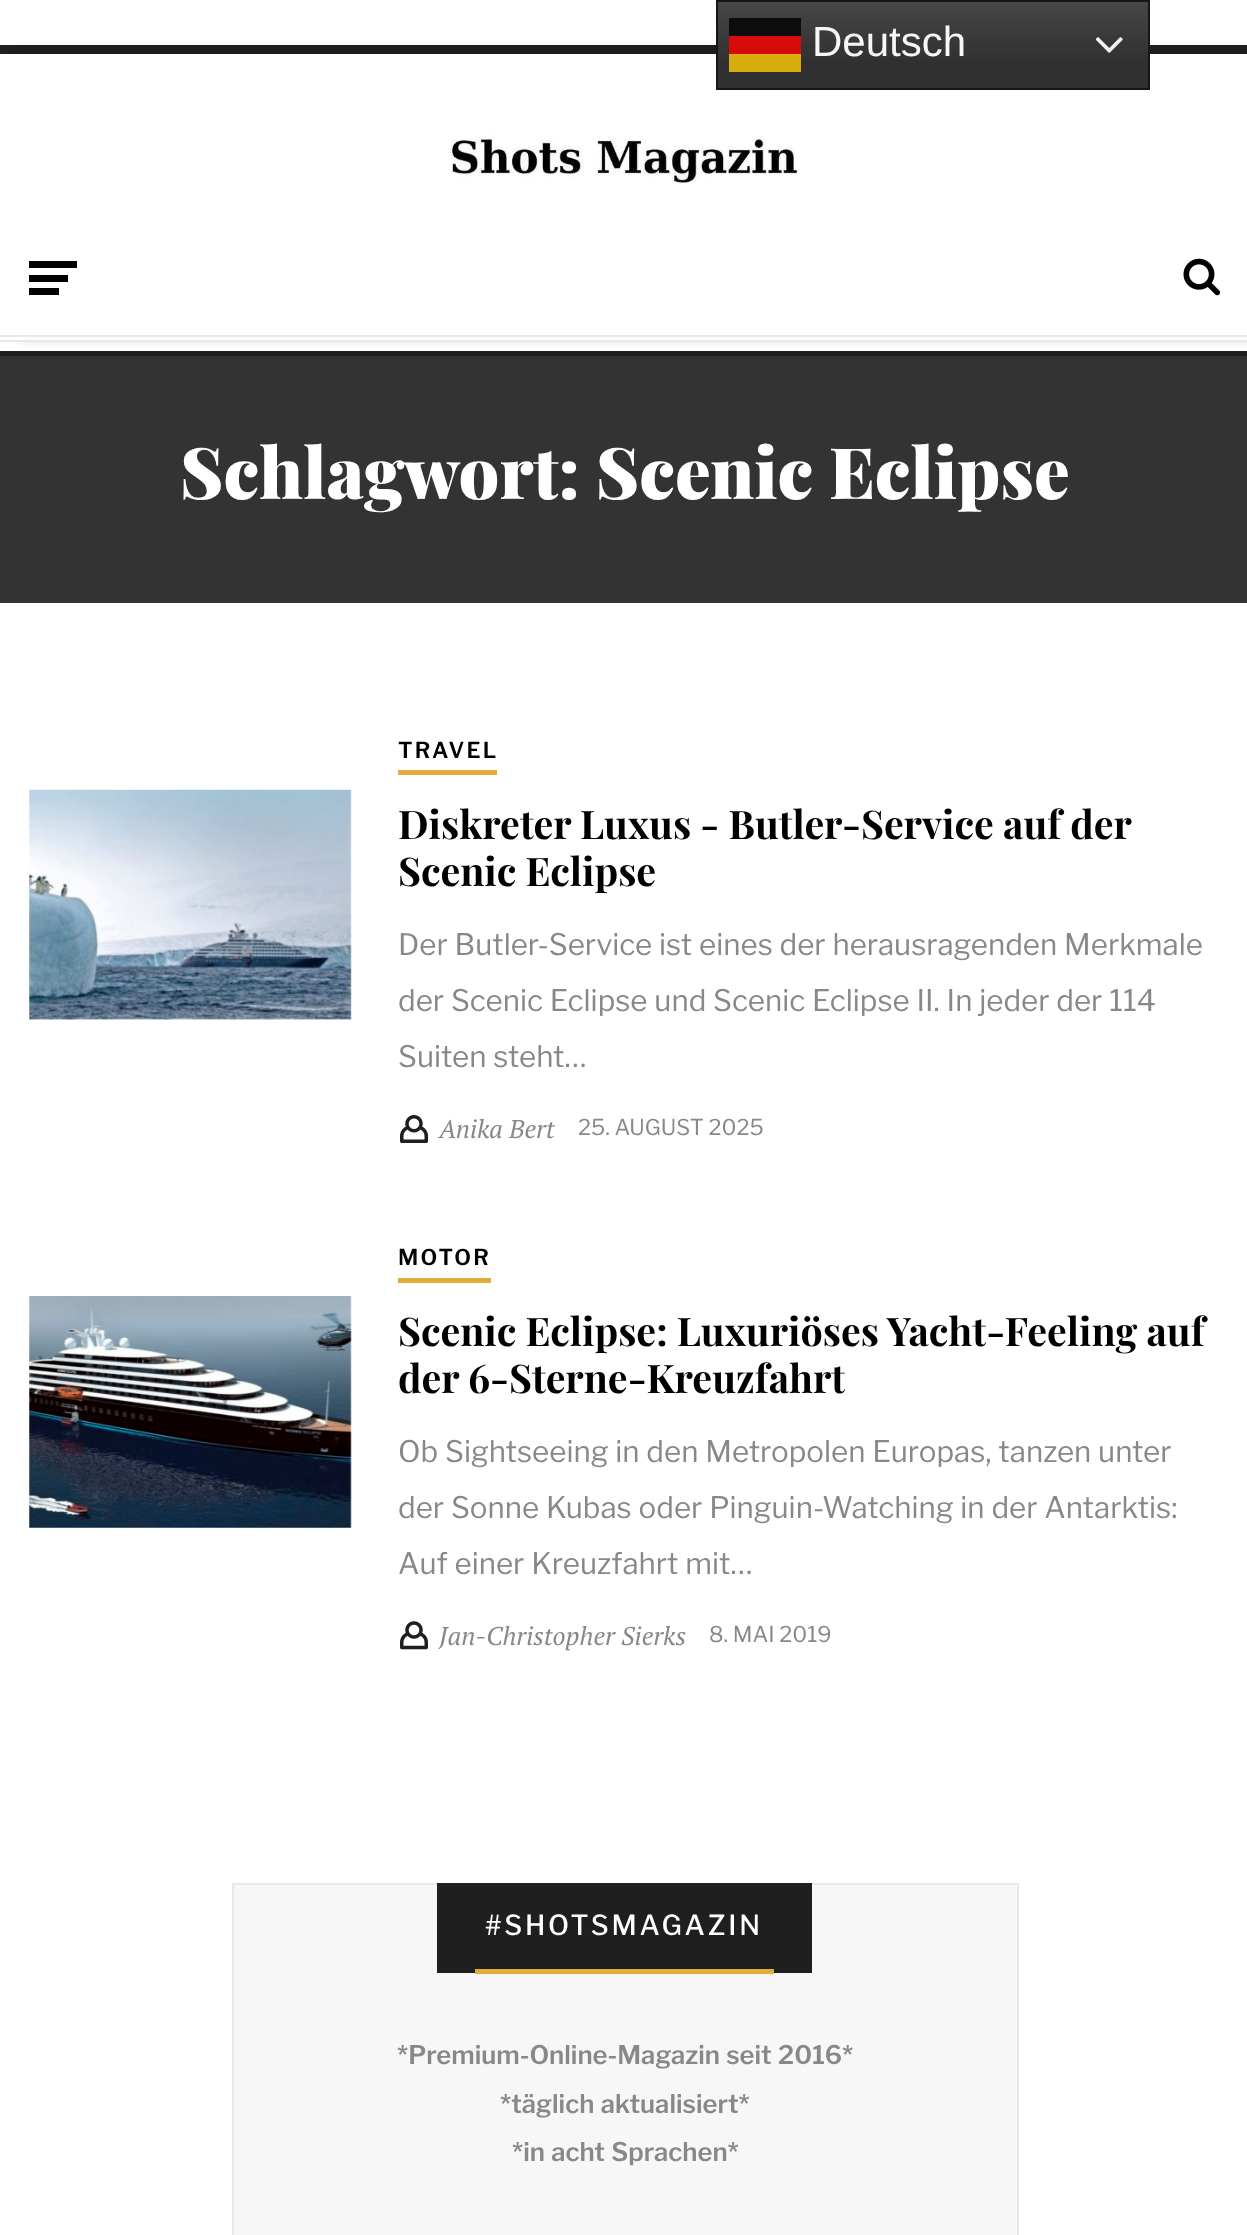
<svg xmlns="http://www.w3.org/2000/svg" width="1247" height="2235">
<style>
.a{font:42px Liberation Sans;fill:#f7f7f7}
.b{font:900 70.9px Playfair Display;fill:#fff}
.c{font:100 21.75px Libre Franklin;letter-spacing:2.25px;fill:#000}
.d{font:bold 39.4px Playfair Display;fill:#000}
.e{font:100 29.5px 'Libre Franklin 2';fill:#888}
.f{font:italic 25.6px PT Serif;fill:#888}
.g{font:100 21.75px 'Libre Franklin 2';fill:#888}
.h{font:100 27.5px 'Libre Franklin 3';letter-spacing:2.75px;fill:#fff}
.i{font:100 25.6px Libre Franklin;fill:#888}
</style>
<defs>
<clipPath id="clip1"><path d="M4 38h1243v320h-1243zm-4 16h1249v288h-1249z" clip-rule="evenodd"/></clipPath>
<linearGradient id="g1" gradientUnits="userSpaceOnUse" x1="933" y1="0" x2="933" y2="90"><stop offset="0" stop-color="#474747"/><stop offset="0.7" stop-color="#303030"/></linearGradient>
<linearGradient id="g2" gradientUnits="userSpaceOnUse" x1="933" y1="0" x2="933" y2="90"><stop offset="0" stop-color="#0e0e0e"/><stop offset="0.7" stop-color="#0a0a0a"/></linearGradient>
<linearGradient id="g3" gradientUnits="userSpaceOnUse" x1="933" y1="0" x2="933" y2="90"><stop offset="0" stop-color="#dab10e"/><stop offset="0.7" stop-color="#d6ad0a"/></linearGradient>
</defs>
<rect width="100%" height="100%" fill="#fff"/>
<path fill="#1f1f1f" d="M0 45h1247v9H0z"/>
<path fill="#1f1f1f" d="M0 351h1247v5H0z"/>
<path fill="#333" d="M0 356h1247v247H0z"/>
<g clip-path="url(#clip1)">
<path fill="#0000001a" filter="blur(5px)" d="M20 54h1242v288H20z"/>
</g>
<path fill="url(#g1)" d="M718 2h430v86H718z"/>
<path fill="url(#g2)" d="M729 18h72v18H729z"/>
<path fill="url(#g3)" d="M729 54h72v18H729z"/>
<path fill="none" stroke="#161616" stroke-width="2" d="M717 1h432v88H717z"/>
<path fill="#ff0000cc" d="M729 36h72v18H729z"/>
<image href="1.png" x="1096" y="37" width="27" height="16"/>
<path fill="#e8e8e8" d="M0 335h1247v2H0z"/>
<path fill="#e8e8e8" d="M0 340h1247v2H0z"/>
<image href="2.png" x="450" y="135" width="348" height="49"/>
<path fill="#000" d="M29 261h48v7H29z"/>
<path fill="#000" d="M29 275h39v7H29z"/>
<path fill="#000" d="M29 288h30v7H29z"/>
<image href="3.png" x="1183" y="258" width="38" height="38"/>
<image href="4.png" x="29" y="789" width="323" height="231"/>
<path fill="#e0ad38" d="M398 770h99v5H398z"/>
<image href="5.png" x="400" y="1115" width="28" height="28"/>
<image href="6.png" x="29" y="1296" width="323" height="232"/>
<path fill="#e0ad38" d="M398 1278h93v5H398z"/>
<image href="7.png" x="400" y="1621" width="28" height="29"/>
<path fill="#f7f7f7" stroke="#e8e8e8" stroke-width="2" d="M233 1884h785v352H233z"/>
<path fill="#1f1f1f" d="M437 1883h375v90H437z"/>
<path fill="#e0ad38" d="M475 1969h299v5H475z"/>
<text class="a" x="812" y="56">Deutsch</text>
<text class="b" x="180" y="499">Schlagwort: Scenic Eclipse</text>
<text class="c" x="398" y="758">TRAVEL</text>
<text class="d" x="398" y="839">Diskreter Luxus - Butler-Service auf der</text>
<text class="d" x="398" y="886">Scenic Eclipse</text>
<text class="e" x="398" y="955" word-spacing="0.5">Der Butler-Service ist eines der herausragenden Merkmale</text>
<text class="e" x="398" y="1011" word-spacing="0.5">der Scenic Eclipse und Scenic Eclipse II. In jeder der 114</text>
<text class="e" x="398" y="1067" word-spacing="0.5">Suiten steht…</text>
<text class="f" x="439" y="1138">Anika Bert</text>
<text class="g" x="578" y="1135">25. AUGUST 2025</text>
<text class="c" x="398" y="1265">MOTOR</text>
<text class="d" x="398" y="1346">Scenic Eclipse: Luxuriöses Yacht-Feeling auf</text>
<text class="d" x="398" y="1393">der 6-Sterne-Kreuzfahrt</text>
<text class="e" x="398" y="1462" word-spacing="0.5">Ob Sightseeing in den Metropolen Europas, tanzen unter</text>
<text class="e" x="398" y="1518" word-spacing="0.5">der Sonne Kubas oder Pinguin-Watching in der Antarktis:</text>
<text class="e" x="398" y="1574" word-spacing="0.5">Auf einer Kreuzfahrt mit…</text>
<text class="f" x="439" y="1645">Jan-Christopher Sierks</text>
<text class="g" x="709" y="1642">8. MAI 2019</text>
<text class="h" x="485" y="1935">#SHOTSMAGAZIN</text>
<text class="i" x="397" y="2064" word-spacing="1">*Premium-Online-Magazin seit 2016*</text>
<text class="i" x="500" y="2113" word-spacing="1">*täglich aktualisiert*</text>
<text class="i" x="512" y="2161" word-spacing="1">*in acht Sprachen*</text>
</svg>
